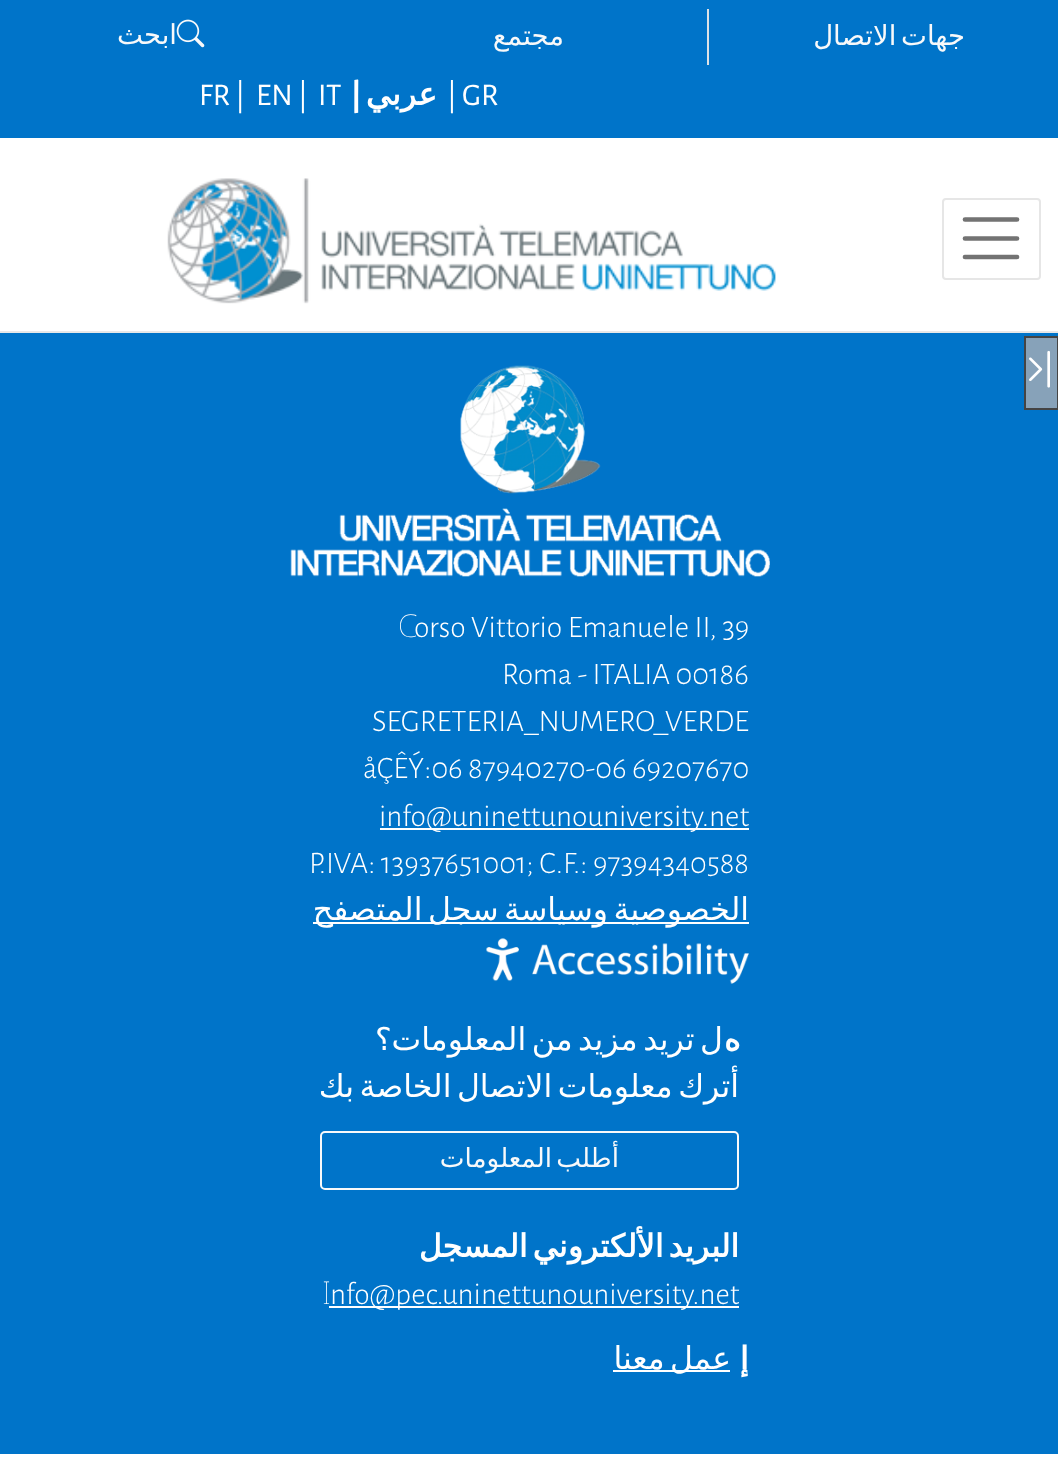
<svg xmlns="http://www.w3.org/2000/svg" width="1058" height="1460">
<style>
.a{font:27.5px DejaVu Sans;direction:rtl;fill:#f8f9fa}
.b{font:31.5px Alegreya Sans;fill:#fff}
.c{font:800 31.5px Alegreya Sans;direction:rtl;fill:#fff}
.d{font:bold 31.5px DejaVu Sans;direction:rtl;fill:#fff}
.e{font:100 31.5px Noto Sans;fill:#fff}
.f{font:300 31.5px Alegreya Sans;fill:#fff}
.g{font:31.5px DejaVu Sans;direction:rtl;fill:#fff}
.h{font:900 31.5px Noto Sans;direction:rtl;fill:#fff}
.i{font:26.25px DejaVu Sans;direction:rtl;fill:#f8f9fa}
</style>
<rect width="100%" height="100%" fill="#0074c9"/>
<path fill="#fff" d="M0 138h1058v193H0z"/>
<path fill="#e8e8e8" d="M0 331h1058v2H0z"/>
<image href="1.png" x="176" y="19" width="29" height="29"/>
<path fill="#dee2e6" d="M707 9h2v56H707z"/>
<image href="2.png" x="167" y="178" width="609" height="126"/>
<rect fill="none" stroke="#e6e6e6" stroke-width="2" x="943" y="199" width="97" height="80" rx="3"/>
<path fill="none" stroke="#737373" stroke-width="4.7" stroke-linecap="round" d="M965 219.5h52m-52 19h52m-52 18.5h52"/>
<path fill="#87a2b9" stroke="#444" stroke-width="2" d="M1025 337h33v72H1025z"/>
<image href="3.png" x="1029" y="350" width="21" height="38"/>
<image href="4.png" x="290" y="365" width="480" height="212"/>
<path fill="#fff" d="M380 828h369v2H380z"/>
<path fill="#fff" d="M313 922h436v2H313z"/>
<image href="5.png" x="486" y="938" width="263" height="46"/>
<rect fill="none" stroke="#f8f9fa" stroke-width="2" x="321" y="1132" width="417" height="57" rx="4"/>
<path fill="#fff" d="M329 1306h410v2H329z"/>
<path fill="#fff" d="M613 1370h117v2H613z"/>
<path fill="#fff" d="M0 1454h1058v6H0z"/>
<text class="a" x="177" y="44">ابحث</text>
<text class="a" x="564" y="45">مجتمع</text>
<text class="a" x="965" y="45" word-spacing="-4">جهات الاتصال</text>
<text class="b" x="199" y="105">FR |</text>
<text class="b" x="256" y="105">EN |</text>
<text class="b" x="318" y="105">IT</text>
<text class="c" x="361" y="105">|</text>
<text class="d" x="437" y="105">عربي</text>
<text class="b" x="447" y="105">| GR</text>
<text class="e" x="398" y="637">C</text>
<text class="f" x="414" y="637">orso Vittorio Emanuele II, 39</text>
<text class="f" x="502" y="684">Roma - ITALIA 00186</text>
<text class="f" x="372" y="731">SEGRETERIA_NUMERO_VERDE</text>
<text class="f" x="363" y="778">åÇÊÝ:06 87940270-06 69207670</text>
<text class="f" x="379" y="826">info@uninettunouniversity.net</text>
<text class="f" x="309" y="873">P.IVA: 13937651001; C.F.: 97394340588</text>
<text class="g" x="749" y="920" word-spacing="-4.5">الخصوصية وسياسة سجل المتصفح</text>
<text class="h" x="741" y="1050">ه</text>
<text class="g" x="723" y="1050" word-spacing="-4.5">ل تريد مزيد من المعلومات؟</text>
<text class="g" x="739" y="1097" word-spacing="-4.5">أترك معلومات الاتصال الخاصة بك</text>
<text class="i" x="619" y="1167" word-spacing="-4">أطلب المعلومات</text>
<text class="d" x="739" y="1257" word-spacing="-5">البريد الألكتروني المسجل</text>
<text class="e" x="322" y="1304">I</text>
<text class="f" x="330" y="1304">nfo@pec.uninettunouniversity.net</text>
<text class="g" x="731" y="1369" word-spacing="-4.5">عمل معنا</text>
<text class="h" x="749" y="1369">إ</text>
</svg>
